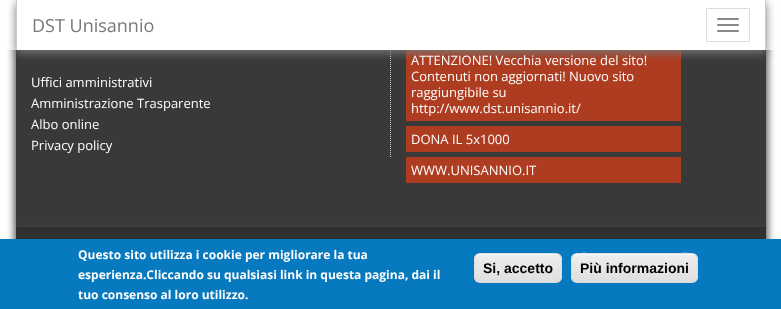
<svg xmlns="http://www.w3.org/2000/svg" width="781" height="309">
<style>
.a{font:18px Open Sans;fill:#777}
.b{font:13px Open Sans;fill:#fdfdfd}
.c{font:bold 12px Open Sans;fill:#fdfdfd}
.d{font:bold 14px Liberation Sans;fill:#000}
</style>
<defs>
<clipPath id="clip1"><path d="M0 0h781v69h-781zm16 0h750v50h-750z" clip-rule="evenodd"/></clipPath>
<clipPath id="clip2"><rect x="474" y="253" width="88" height="30" rx="6"/></clipPath>
<linearGradient id="g1" gradientUnits="userSpaceOnUse" x1="518" y1="254" x2="518" y2="282"><stop offset="0.05" stop-color="#ededed"/><stop offset="1" stop-color="#dfdfdf"/></linearGradient>
<clipPath id="clip3"><rect x="571" y="253" width="127" height="30" rx="6"/></clipPath>
<linearGradient id="g2" gradientUnits="userSpaceOnUse" x1="635" y1="254" x2="635" y2="282"><stop offset="0.05" stop-color="#ededed"/><stop offset="1" stop-color="#dfdfdf"/></linearGradient>
</defs>
<rect width="100%" height="100%" fill="#fefefe"/>
<path fill="#666" filter="blur(4px)" d="M16 -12h750v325H16z"/>
<path fill="#666" filter="blur(4px)" d="M16 -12h750v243H16z"/>
<path fill="#393939" d="M16 50h750v177H16z"/>
<path fill="none" stroke="#ccc" stroke-dasharray="1 1" d="M390.5 16v142"/>
<path fill="#fff" d="M6 0h770v50H6z"/>
<path fill="#ae3c20" d="M406 50h275v71H406z"/>
<g clip-path="url(#clip1)">
<path fill="#777" filter="blur(5px)" d="M16 3h750v50H16z"/>
</g>
<path fill="#ccc" d="M765 0h1v50H765z"/>
<path fill="#ccc" d="M16 0h1v50H16z"/>
<path fill="none" stroke="#ddd" d="M706.5 8.5h43v33H706.5z"/>
<rect fill="#888" x="717" y="18" width="22" height="2" rx="1"/>
<rect fill="#888" x="717" y="24" width="22" height="2" rx="1"/>
<rect fill="#888" x="717" y="30" width="22" height="2" rx="1"/>
<path fill="#ae3c20" d="M406 126h275v26H406z"/>
<path fill="#ae3c20" d="M406 157h275v26H406z"/>
<path fill="#666" filter="blur(4px)" d="M16 231h750v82H16z"/>
<path fill="#303030" d="M16 227h750v12H16z"/>
<path fill="#0779bf" d="M0 239h781v70H0z"/>
<g clip-path="url(#clip2)">
<path fill="url(#g1)" d="M474 254h88v28H474z"/>
</g>
<path fill="#fff" d="M480 255h76c3 0 5 2 5 5c0-9-12-6-18-6h-50c-6 0-18-3-18 6c0-3 2-5 5-5z"/>
<rect fill="none" stroke="#dcdcdc" x="474.5" y="253.5" width="87" height="29" rx="5.5"/>
<g clip-path="url(#clip3)">
<path fill="url(#g2)" d="M571 254h127v28H571z"/>
</g>
<path fill="#fff" d="M577 255h115c3 0 5 2 5 5c0-11-20-6-24-6h-77c-4 0-24-5-24 6c0-3 2-5 5-5z"/>
<rect fill="none" stroke="#dcdcdc" x="571.5" y="253.5" width="126" height="29" rx="5.5"/>
<text class="a" x="32" y="32">DST Unisannio</text>
<text class="b" x="31" y="87">Uffici amministrativi</text>
<text class="b" x="31" y="108">Amministrazione Trasparente</text>
<text class="b" x="31" y="129">Albo online</text>
<text class="b" x="31" y="150">Privacy policy</text>
<text class="b" x="411" y="65">ATTENZIONE! Vecchia versione del sito!</text>
<text class="b" x="411" y="81">Contenuti non aggiornati! Nuovo sito</text>
<text class="b" x="411" y="97">raggiungibile su</text>
<text class="b" x="411" y="113">http://www.dst.unisannio.it/</text>
<text class="b" x="411" y="144">DONA IL 5x1000</text>
<text class="b" x="411" y="175">WWW.UNISANNIO.IT</text>
<text class="c" x="78" y="259">Questo sito utilizza i cookie per migliorare la tua</text>
<text class="c" x="78" y="279">esperienza.Cliccando su qualsiasi link in questa pagina, dai il</text>
<text class="c" x="78" y="299">tuo consenso al loro utilizzo.</text>
<text class="d" x="483" y="273">Si, accetto</text>
<text class="d" x="580" y="273">Più informazioni</text>
</svg>
